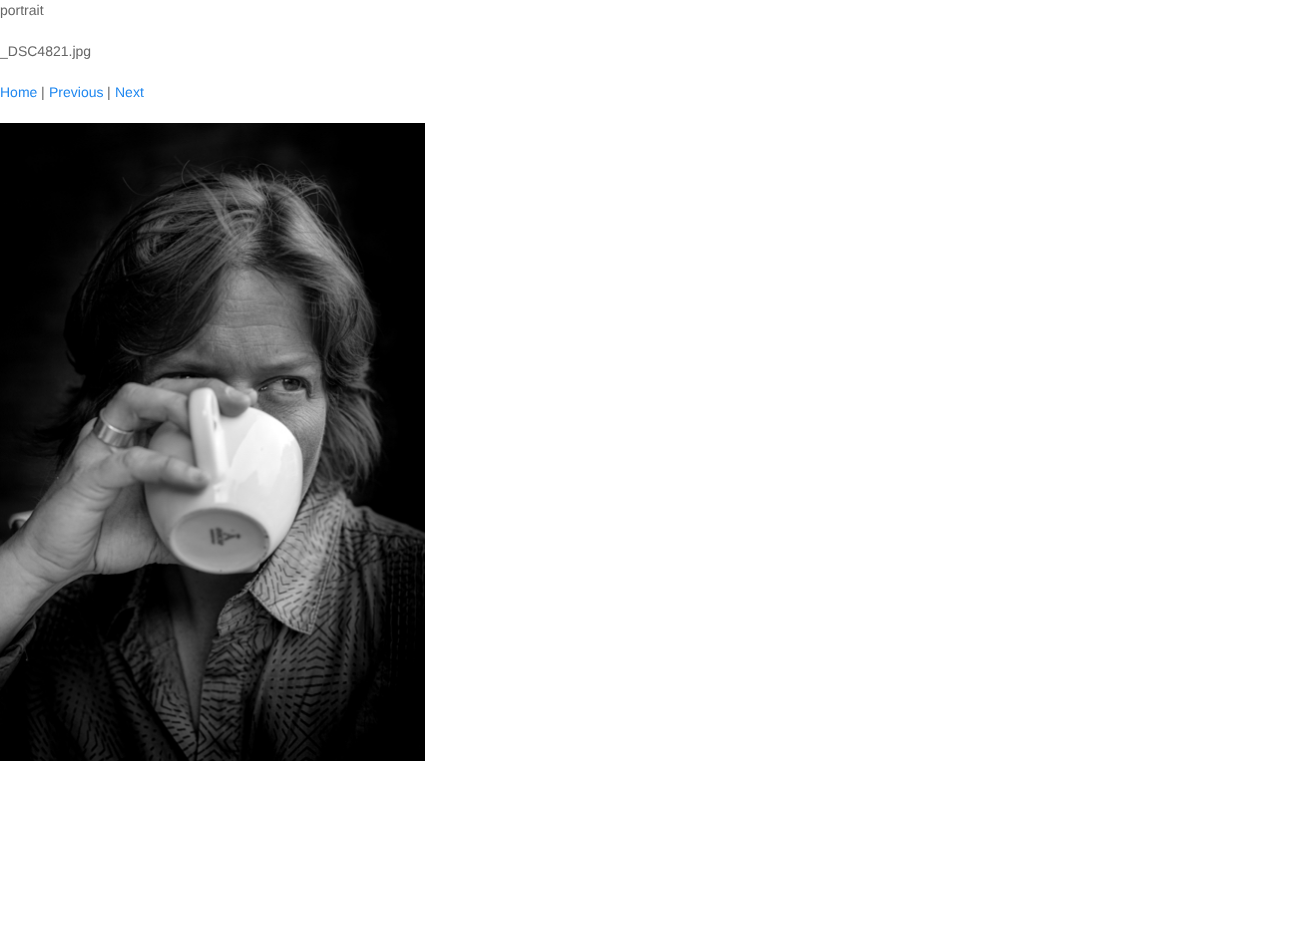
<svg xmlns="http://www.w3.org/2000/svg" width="1291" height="939">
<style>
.a{font:14px Liberation Sans;fill:#666}
.b{font:14px Liberation Sans;fill:#1e87f0}
</style>
<rect width="100%" height="100%" fill="#fff"/>
<image href="1.png" x="0" y="123" width="425" height="638"/>
<text class="a" x="0" y="15">portrait</text>
<text class="a" x="0" y="56">_DSC4821.jpg</text>
<text class="b" x="0" y="97">Home</text>
<text class="a" x="41" y="97">|</text>
<text class="b" x="49" y="97">Previous</text>
<text class="a" x="107" y="97">|</text>
<text class="b" x="115" y="97">Next</text>
</svg>
